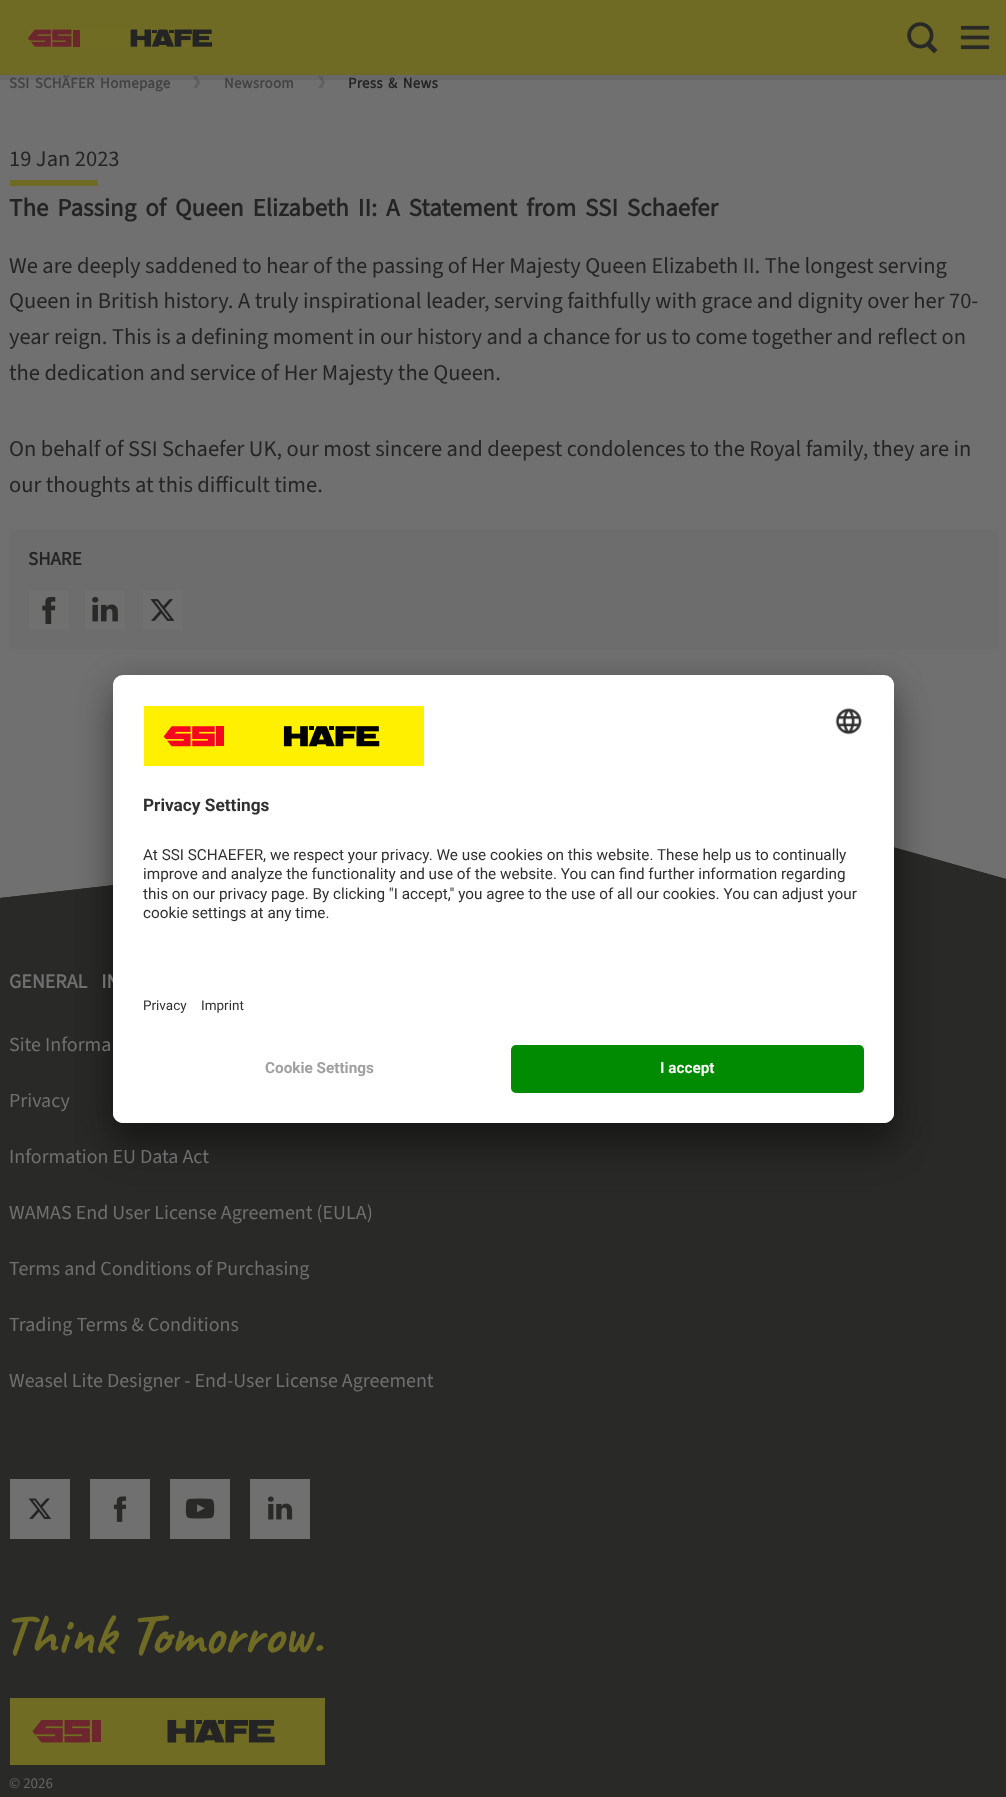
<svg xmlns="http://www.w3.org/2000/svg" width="1006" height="1797">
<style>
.a{font:bold 15px 'Source Sans 3';letter-spacing:0.25px;fill:#424242}
.b{font:bold 15px 'Source Sans 3';letter-spacing:0.25px;fill:#242424}
.c{font:22.5px 'Source Sans 3';fill:#242424}
.d{font:bold 25px 'Source Sans 3';fill:#242424}
.e{font:bold 19px 'Source Sans 3';fill:#242424}
.f{font:bold 20px 'Source Sans 3';fill:#707070}
.g{font:13.5px Roboto;fill:#303030}
.h{font:15.3px Roboto;fill:#303030}
.i{font:bold 17.25px Roboto;fill:#303030}
.j{font:bold 15.3px Roboto;fill:#fafafa}
.k{font:bold 15.3px Roboto;fill:#a1a0a0}
.l{font:20px 'Source Sans 3';fill:#707070}
.m{font:15px 'Source Sans 3';fill:#656565}
</style>
<defs>
<clipPath id="clip1"><rect x="113" y="675" width="781" height="448" rx="10"/></clipPath>
<clipPath id="clip2"><path d="M123 675h761c5.5 0 10 4.5 10 10v350h-781v-350c0-5.5 4.5-10 10-10z"/></clipPath>
</defs>
<rect width="100%" height="100%" fill="#707070"/>
<image href="4.png" x="193" y="76" width="8" height="13"/>
<image href="4.png" x="318" y="76" width="8" height="13"/>
<path fill="#2929281a" d="M0 75h1006v5H0z"/>
<path fill="#706b24" d="M0 0h1006v75H0z"/>
<image href="1.png" x="28" y="29" width="185" height="18"/>
<image href="2.png" x="907" y="22" width="31" height="32"/>
<image href="3.png" x="960" y="25" width="30" height="25"/>
<path fill="#706b24" d="M10 180h88v6H10z"/>
<path fill="#6d6d6d" d="M10 530h988v119H10z"/>
<path fill="#707070" d="M29 590h40v40H29z"/>
<image href="5.png" x="42" y="596" width="14" height="28"/>
<path fill="#707070" d="M85 590h40v40H85z"/>
<image href="6.png" x="92" y="596" width="26" height="26"/>
<path fill="#707070" d="M143 590h40v40H143z"/>
<image href="7.png" x="150" y="599" width="25" height="22"/>
<path fill="#292928" d="M0 898v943h1006v-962l-241-68z"/>
<path fill="#292928" d="M0 898v867h1006v-886l-241-68z"/>
<rect fill="#0000004d" filter="blur(17.5px)" x="113" y="700" width="781" height="448" rx="10"/>
<rect fill="#00000038" filter="blur(16px)" x="113" y="681" width="781" height="448" rx="10"/>
<path fill="#707070" d="M10 1479h60v60H10z"/>
<image href="10.png" x="28" y="1498" width="24" height="21"/>
<path fill="#707070" d="M90 1479h60v60H90z"/>
<image href="11.png" x="113" y="1496" width="14" height="26"/>
<path fill="#707070" d="M170 1479h60v60H170z"/>
<image href="12.png" x="185" y="1498" width="30" height="21"/>
<path fill="#707070" d="M250 1479h60v60H250z"/>
<image href="13.png" x="267" y="1496" width="26" height="24"/>
<image href="14.png" x="11" y="1615" width="313" height="41"/>
<image href="15.png" x="10" y="1698" width="315" height="67"/>
<text class="a" x="9" y="88" word-spacing="2">SSI SCHÄFER Homepage</text>
<text class="a" x="224" y="88">Newsroom</text>
<text class="b" x="348" y="88" word-spacing="2">Press &amp; News</text>
<text class="c" x="9" y="166">19 Jan 2023</text>
<text class="d" x="9" y="216" word-spacing="3.9">The Passing of Queen Elizabeth II: A Statement from SSI Schaefer</text>
<text class="c" x="9" y="273">We are deeply saddened to hear of the passing of Her Majesty Queen Elizabeth II. The longest serving</text>
<text class="c" x="9" y="308">Queen in British history. A truly inspirational leader, serving faithfully with grace and dignity over her 70-</text>
<text class="c" x="9" y="344">year reign. This is a defining moment in our history and a chance for us to come together and reflect on</text>
<text class="c" x="9" y="380">the dedication and service of Her Majesty the Queen.</text>
<text class="c" x="9" y="456">On behalf of SSI Schaefer UK, our most sincere and deepest condolences to the Royal family, they are in</text>
<text class="c" x="9" y="492">our thoughts at this difficult time.</text>
<text class="e" x="28" y="565">SHARE</text>
<text class="f" x="9" y="988" word-spacing="10">GENERAL IN</text>
<rect fill="#fff" x="113" y="675" width="781" height="448" rx="10"/>
<g clip-path="url(#clip1)">
<g clip-path="url(#clip2)">
<path fill="#fff" d="M113 676h781v359H113z"/>
</g>
</g>
<image href="9.png" x="835" y="708" width="27" height="27"/>
<text class="g" x="201" y="1010">Imprint</text>
<text class="g" x="143" y="1010">Privacy</text>
<image href="8.png" x="144" y="706" width="280" height="60"/>
<text class="h" x="143" y="918">cookie settings at any time.</text>
<text class="h" x="143" y="899">this on our privacy page. By clicking "I accept," you agree to the use of all our cookies. You can adjust your</text>
<text class="h" x="143" y="879">improve and analyze the functionality and use of the website. You can find further information regarding</text>
<text class="h" x="143" y="860">At SSI SCHAEFER, we respect your privacy. We use cookies on this website. These help us to continually</text>
<text class="i" x="143" y="811">Privacy Settings</text>
<path fill="#fff" d="M113 1035h781v78c0 5.5-4.5 10-10 10h-761c-5.5 0-10-4.5-10-10z"/>
<rect fill="#008b02" x="511" y="1045" width="353" height="48" rx="5"/>
<text class="j" x="660" y="1073">I accept</text>
<text class="k" x="265" y="1073">Cookie Settings</text>
<text class="l" x="9" y="1051">Site Informa</text>
<text class="l" x="9" y="1107">Privacy</text>
<text class="l" x="9" y="1163">Information EU Data Act</text>
<text class="l" x="9" y="1219">WAMAS End User License Agreement (EULA)</text>
<text class="l" x="9" y="1275">Terms and Conditions of Purchasing</text>
<text class="l" x="9" y="1331">Trading Terms &amp; Conditions</text>
<text class="l" x="9" y="1387">Weasel Lite Designer - End-User License Agreement</text>
<text class="m" x="9" y="1788">© 2026</text>
</svg>
